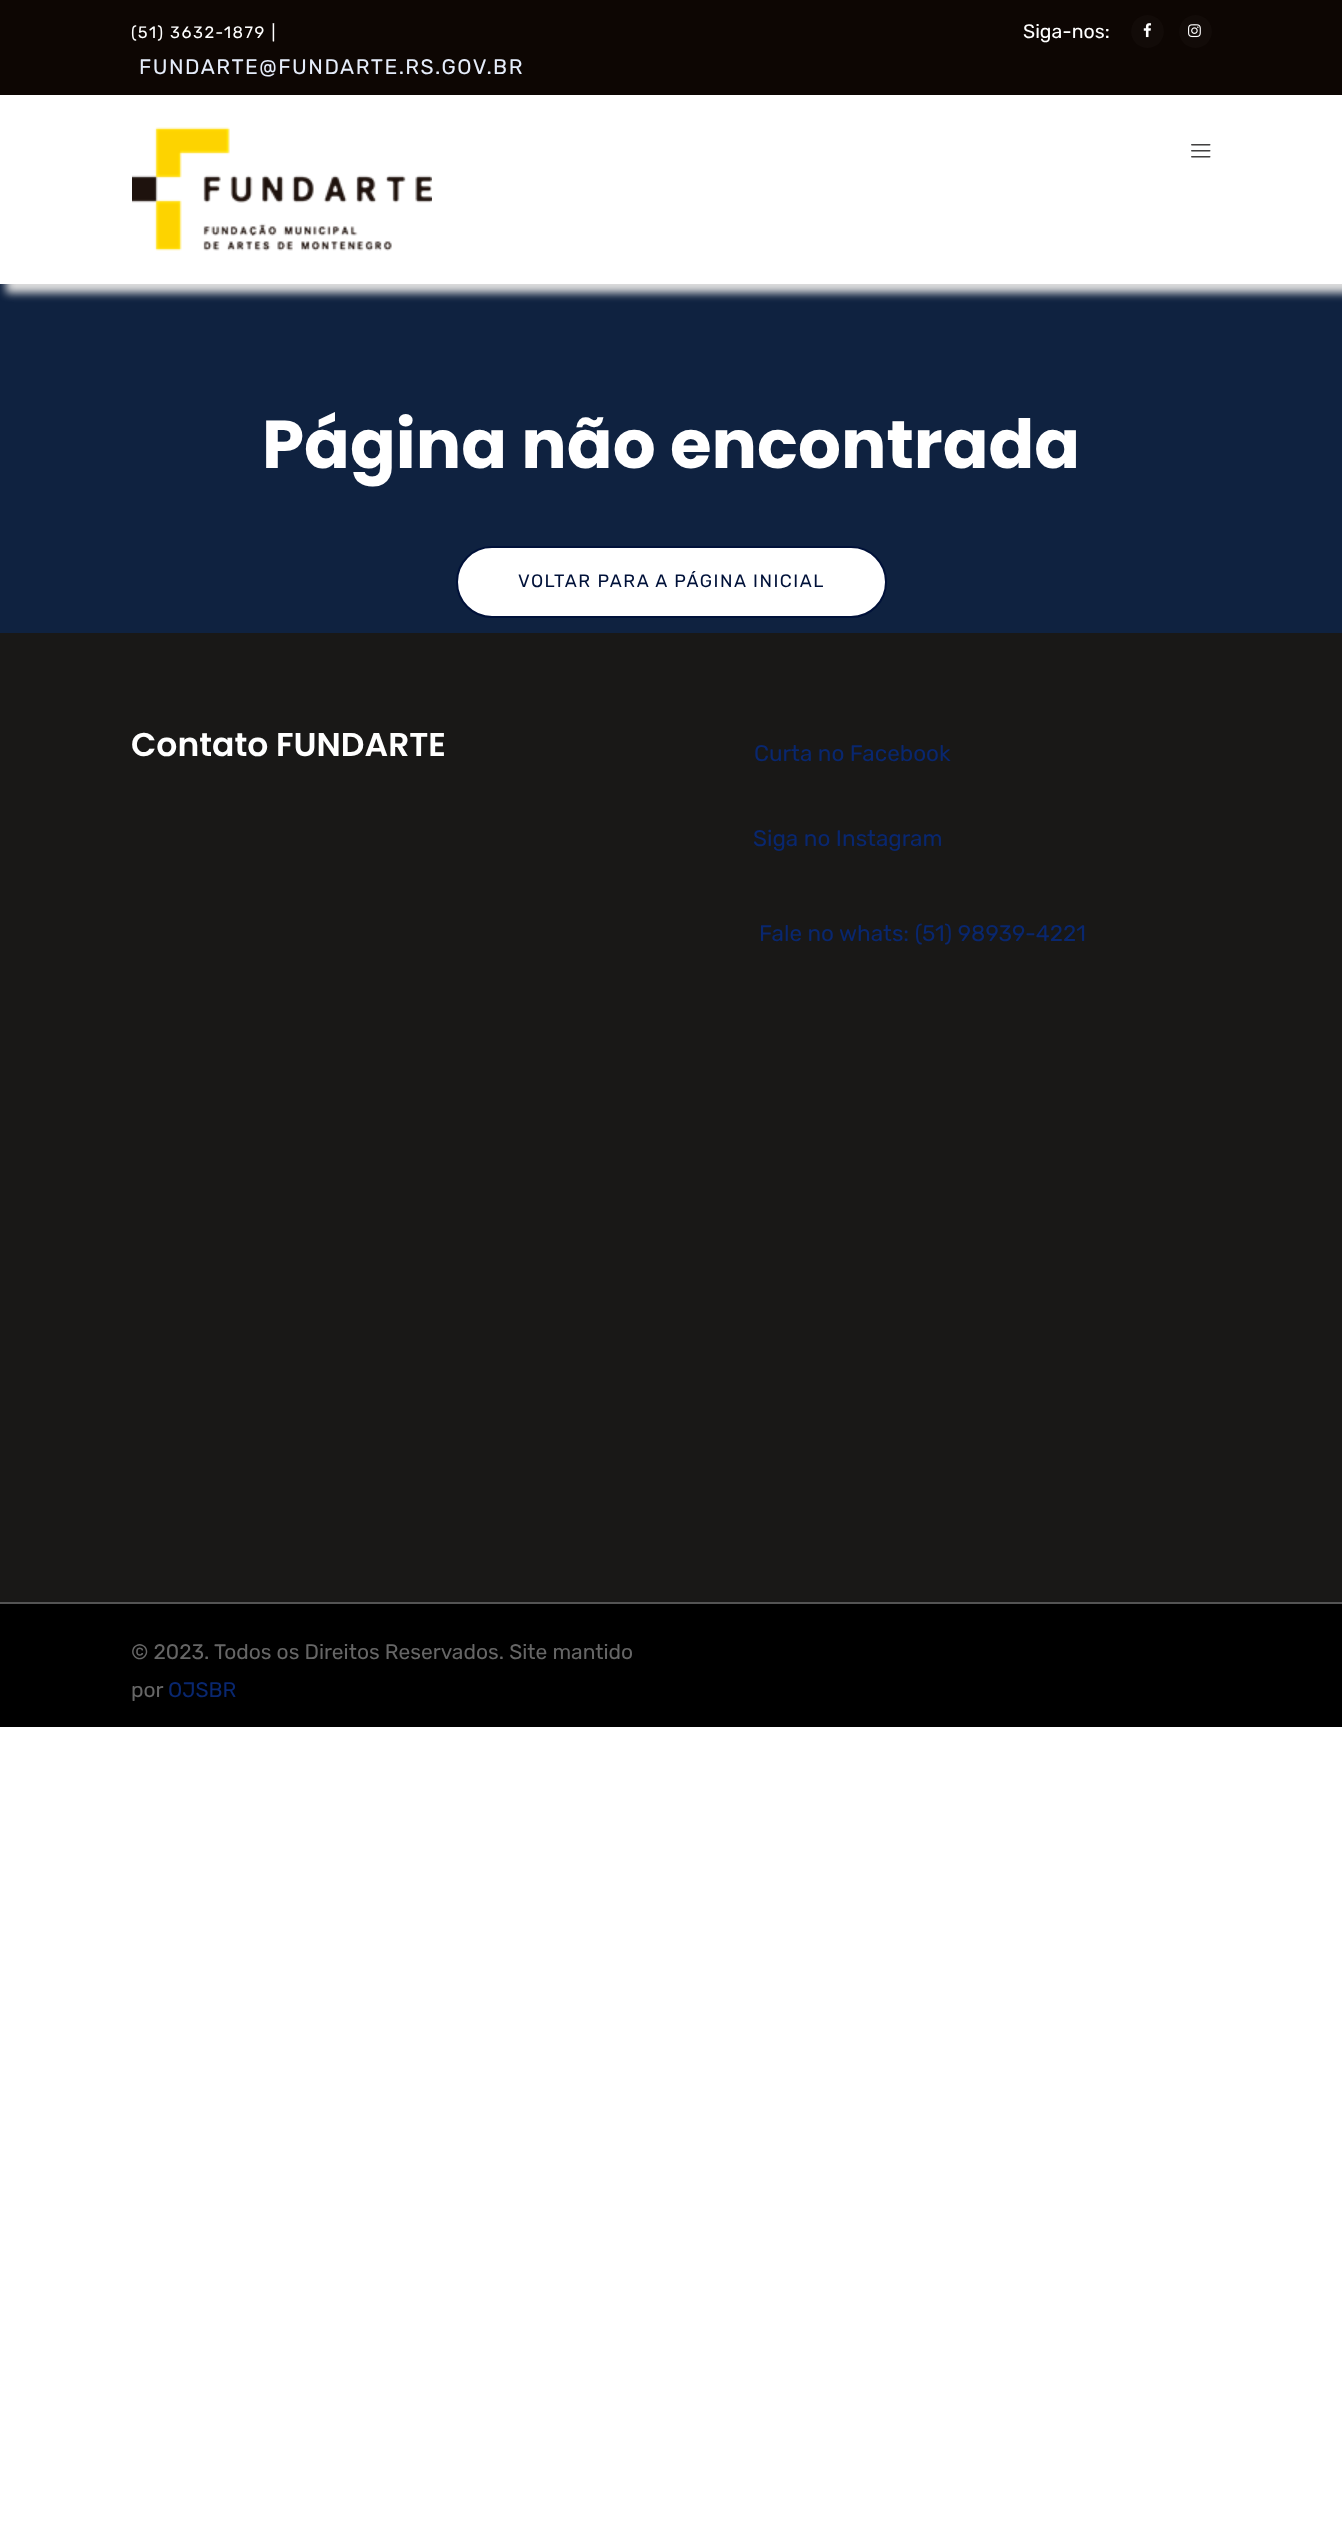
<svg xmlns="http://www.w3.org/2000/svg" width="1342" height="2524">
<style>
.a{font:300 16.5px Rubik;letter-spacing:1.5px;fill:#fff}
.b{font:300 21px Rubik;letter-spacing:1.5px;fill:#e5ecfa}
.c{font:300 19.5px Rubik;fill:#fff}
.d{font:bold 67.5px Poppins;fill:#fff}
.e{font:300 18px Rubik;letter-spacing:1.5px;fill:#001139}
.f{font:600 33px Poppins;fill:#fff}
.g{font:300 22.5px Rubik;fill:#09276f}
.h{font:300 21px Rubik;fill:#666}
.i{font:300 21px Rubik;fill:#09276f}
</style>
<rect width="100%" height="100%" fill="#fff"/>
<path fill="#0f2240" d="M0 284h1342v349H0z"/>
<path fill="#ddd" filter="blur(4px)" d="M6 6h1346v287H6z"/>
<path fill="#0d0603" d="M0 0h1342v95H0z"/>
<circle fill="#120b08" cx="1147.5" cy="31.5" r="16.5"/>
<image href="1.png" x="1143" y="23" width="9" height="15"/>
<circle fill="#120b08" cx="1195.5" cy="31.5" r="16.5"/>
<image href="2.png" x="1188" y="24" width="13" height="14"/>
<path fill="#fff" d="M0 95h1342v189H0z"/>
<image href="3.png" x="132" y="127" width="300" height="124"/>
<image href="4.png" x="1191" y="144" width="20" height="14"/>
<rect fill="#fff" stroke="#001139" stroke-width="2" x="457" y="547" width="429" height="70" rx="35"/>
<path fill="#191817" d="M0 633h1342v969H0z"/>
<path fill="#545454" d="M0 1602h1342v2H0z"/>
<path fill="#000" d="M0 1604h1342v123H0z"/>
<text class="a" x="131" y="38">(51) 3632-1879 |</text>
<text class="b" x="139" y="74">FUNDARTE@FUNDARTE.RS.GOV.BR</text>
<text class="c" x="1023" y="38">Siga-nos:</text>
<text class="d" x="262" y="468">Página não encontrada</text>
<text class="e" x="518" y="587">VOLTAR PARA A PÁGINA INICIAL</text>
<text class="f" x="131" y="756">Contato FUNDARTE</text>
<text class="g" x="754" y="761">Curta no Facebook</text>
<text class="g" x="753" y="846">Siga no Instagram</text>
<text class="g" x="759" y="941">Fale no whats: (51) 98939-4221</text>
<text class="h" x="131" y="1659">© 2023. Todos os Direitos Reservados. Site mantido</text>
<text class="h" x="131" y="1697">por</text>
<text class="i" x="168" y="1697">OJSBR</text>
</svg>
